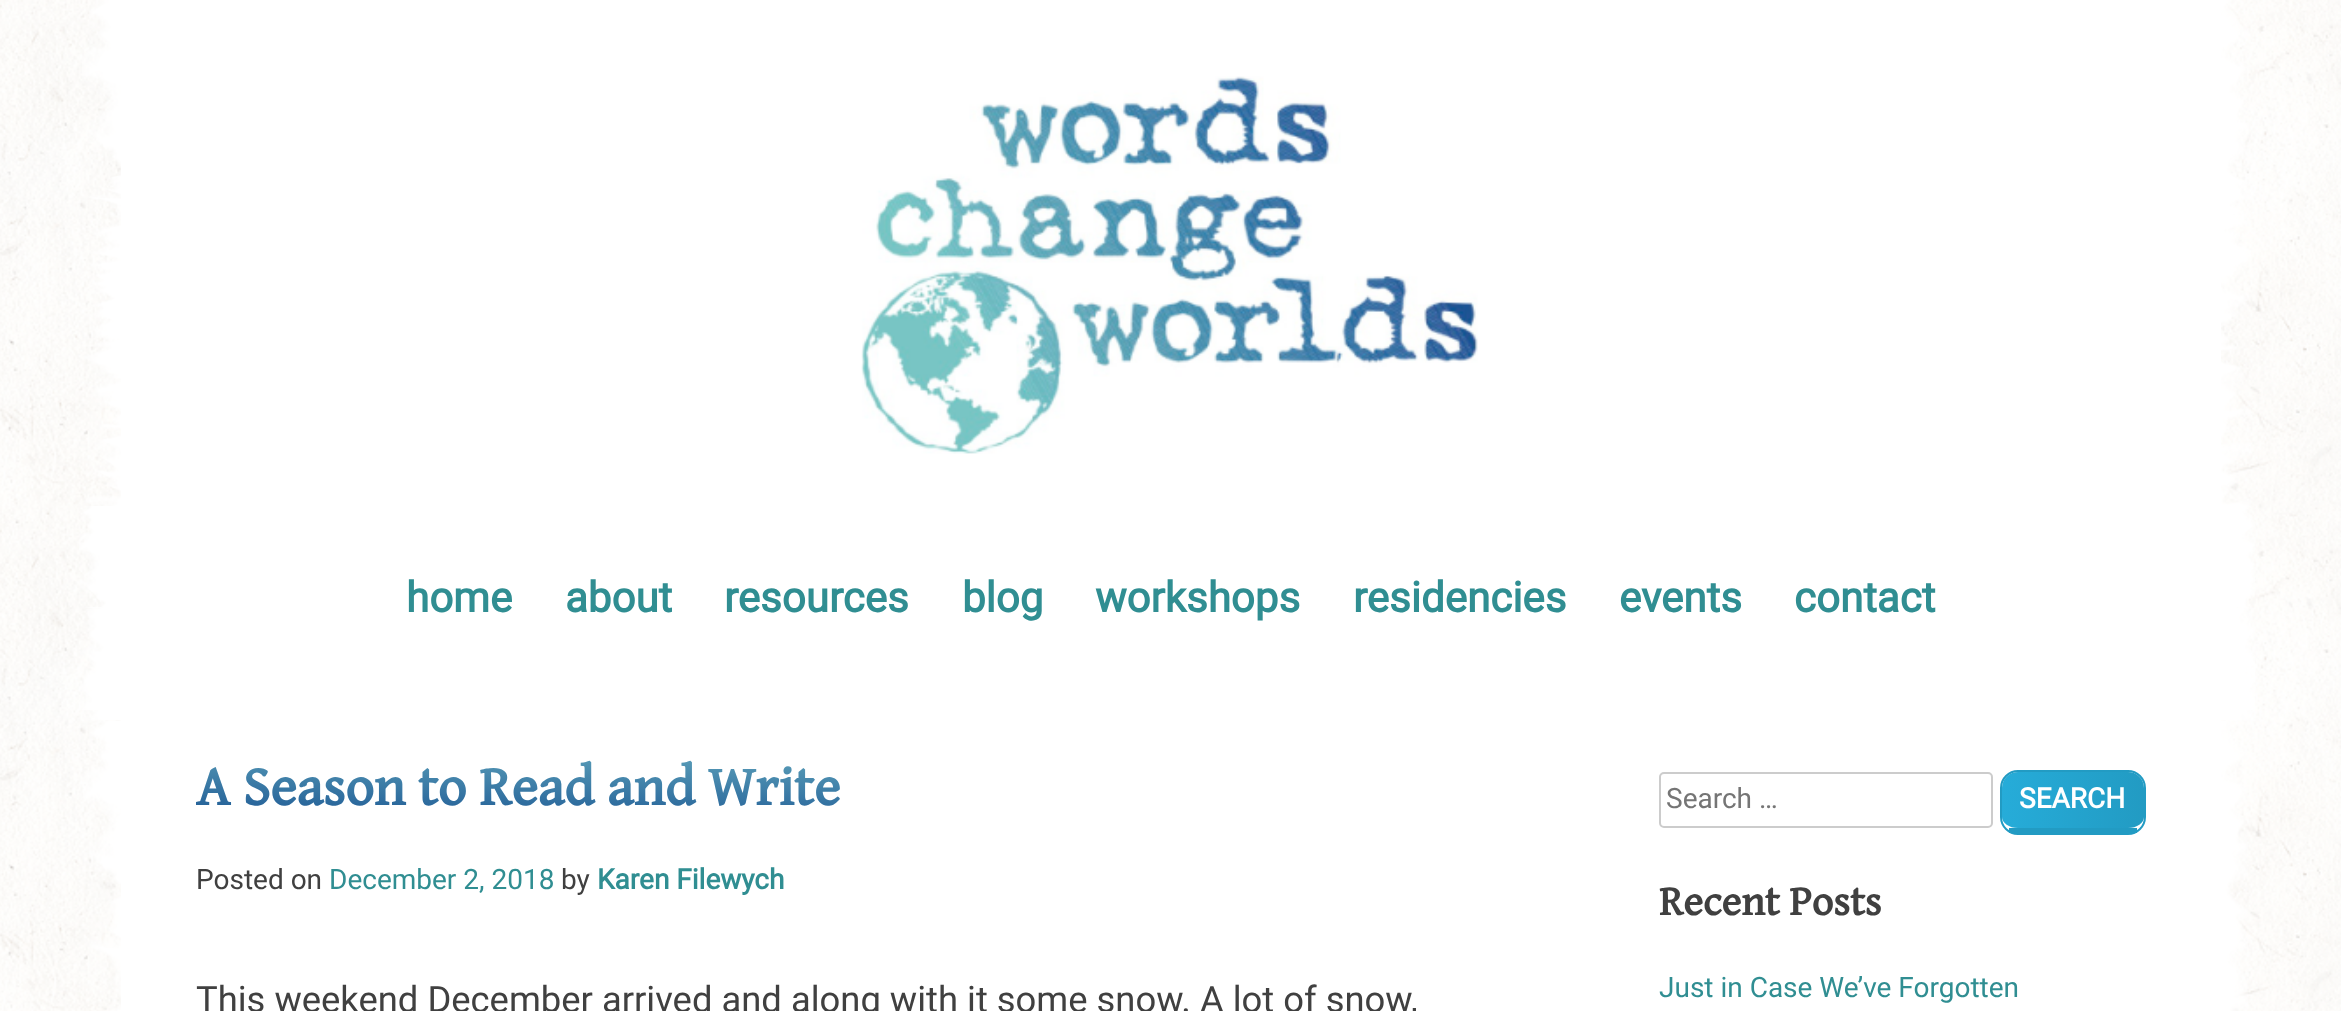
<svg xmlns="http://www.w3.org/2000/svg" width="2341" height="1011">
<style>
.a{font:bold 42px Roboto;fill:#308e92}
.b{font:bold 56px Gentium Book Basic;fill:url(#g1)}
.c{font:28px Roboto;fill:#404040}
.d{font:28px Roboto;fill:#308e92}
.e{font:bold 28px Roboto;fill:#308e92}
.f{font:36.4px Roboto;fill:#404040}
.g{font:28px Roboto;fill:#757575}
.h{font:bold 28px Roboto;fill:#fff}
.i{font:bold 42px Gentium Book Basic;fill:#404040}
</style>
<defs>
<linearGradient id="g1" gradientUnits="userSpaceOnUse" x1="856" y1="836" x2="858" y2="741"><stop offset="0" stop-color="#1a5592"/><stop offset="1" stop-color="#68aec1"/></linearGradient>
<linearGradient id="g2" gradientUnits="userSpaceOnUse" x1="2002" y1="801" x2="2144" y2="799"><stop offset="0" stop-color="#26acd9"/><stop offset="1" stop-color="#229bc3"/></linearGradient>
</defs>
<rect width="100%" height="100%" fill="#fff"/>
<image href="1.png" x="0" y="0" width="2341" height="1011"/>
<path fill="#fff" d="M121 0h2100v1011H121z"/>
<image href="2.png" x="82" y="0" width="2169" height="721"/>
<image href="3.png" x="861" y="76" width="617" height="378"/>
<image href="4.png" x="79" y="506" width="2176" height="204"/>
<image href="5.png" x="83" y="721" width="2165" height="290"/>
<rect fill="none" stroke="#ccc" stroke-width="2" x="1660" y="773" width="332" height="54" rx="4"/>
<path fill="url(#g2)" d="M2018 772h110c9 0 16 7 16 16v29c0 6-7 11-16 11h-110c-9 0-16-5-16-11v-29c0-9 7-16 16-16z"/>
<rect fill="none" stroke="#229bc3" stroke-width="2" x="2001" y="771" width="144" height="63" rx="17"/>
<path fill="#229bc3" d="M2009 828h128v5H2009z"/>
<text class="a" x="406" y="612">home</text>
<text class="a" x="565" y="612">about</text>
<text class="a" x="724" y="612">resources</text>
<text class="a" x="962" y="612">blog</text>
<text class="a" x="1095" y="612">workshops</text>
<text class="a" x="1353" y="612">residencies</text>
<text class="a" x="1619" y="612">events</text>
<text class="a" x="1794" y="612">contact</text>
<text class="b" x="196" y="805">A Season to Read and Write</text>
<text class="c" x="196" y="889">Posted on</text>
<text class="d" x="329" y="889">December 2, 2018</text>
<text class="c" x="561" y="889">by</text>
<text class="e" x="597" y="889">Karen Filewych</text>
<text class="f" x="196" y="1012">This weekend December arrived and along with it some snow. A lot of snow,</text>
<text class="g" x="1666" y="808">Search …</text>
<text class="h" x="2019" y="808">SEARCH</text>
<text class="i" x="1659" y="915">Recent Posts</text>
<text class="d" x="1659" y="997">Just in Case We’ve Forgotten</text>
</svg>
